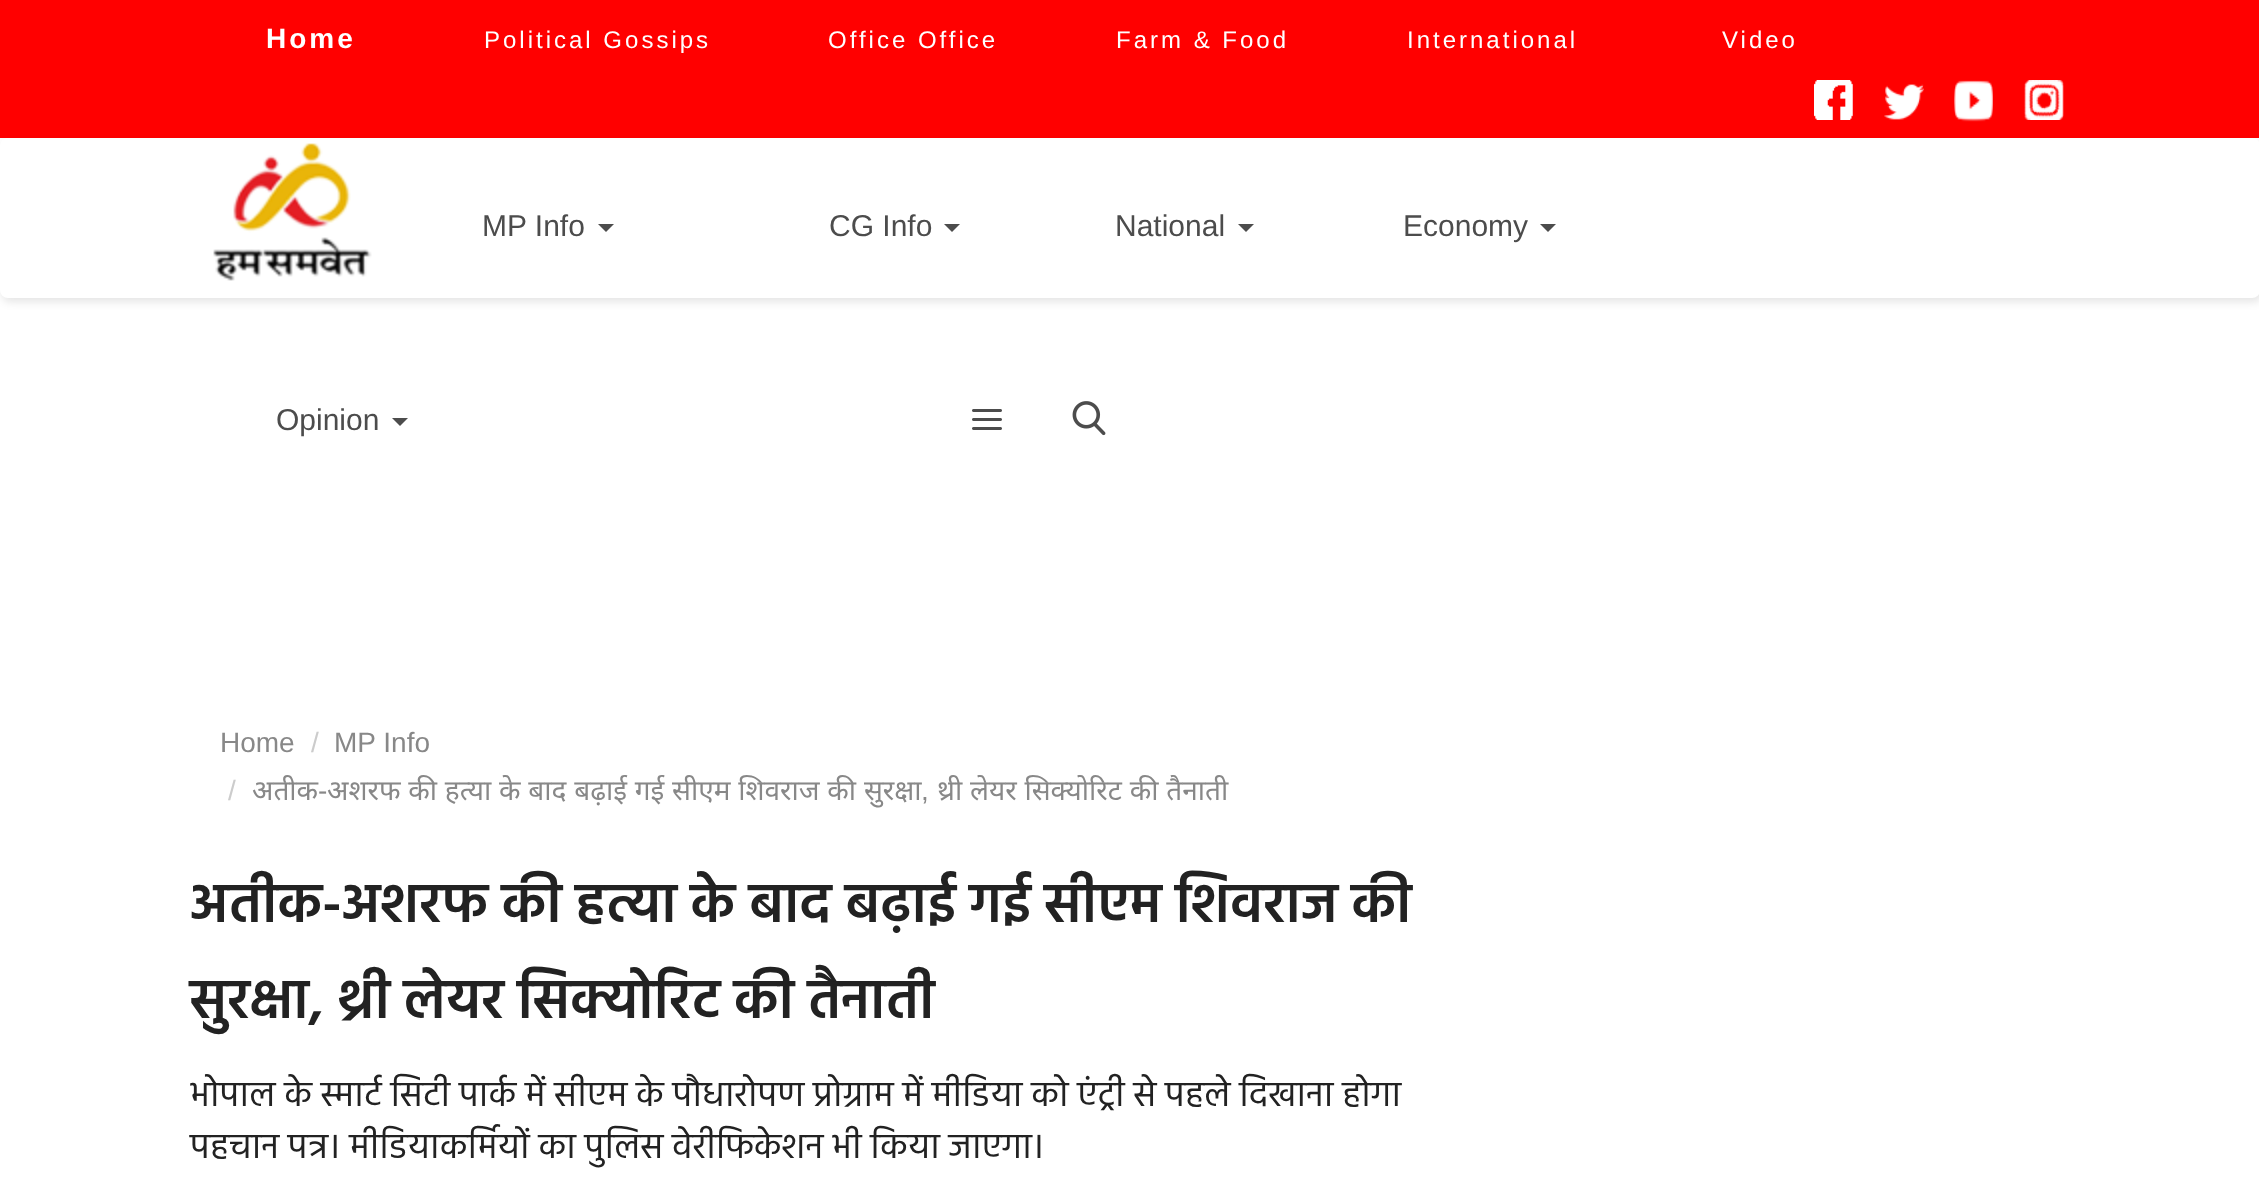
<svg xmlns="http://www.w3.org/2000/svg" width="2259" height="1197">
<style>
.a{font:bold 28px Liberation Sans;letter-spacing:3px;fill:#fff}
.b{font:24px Liberation Sans;letter-spacing:3px;fill:#fff}
.c{font:30px Liberation Sans;fill:#4c4c4c}
.d{font:28px Liberation Sans;fill:#888}
.e{font:28px Liberation Sans;fill:#ccc}
.f{font:28px Noto Sans;fill:#888}
.g{font:600 56px Hind;fill:#222}
.h{font:36px Hind;fill:#222}
</style>
<rect width="100%" height="100%" fill="#fff"/>
<path fill="#f00" d="M0 0h2259v138H0z"/>
<image href="1.png" x="1814" y="80" width="39" height="40"/>
<image href="2.png" x="1884" y="84" width="40" height="36"/>
<image href="3.png" x="1954" y="80" width="39" height="42"/>
<image href="4.png" x="2024" y="80" width="40" height="40"/>
<rect fill="#0000001a" filter="blur(4px)" x="2" y="142" width="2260" height="160" rx="8"/>
<rect fill="#fff" y="138" width="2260" height="160" rx="8"/>
<image href="5.png" x="213" y="143" width="159" height="138"/>
<path fill="#4c4c4c" d="M598 224h16l-8 8z"/>
<path fill="#4c4c4c" d="M944 224h16l-8 8z"/>
<path fill="#4c4c4c" d="M1238 224h16l-8 8z"/>
<path fill="#4c4c4c" d="M1540 224h16l-8 8z"/>
<path fill="#4c4c4c" d="M392 418h16l-8 8z"/>
<image href="6.png" x="972" y="409" width="30" height="21"/>
<image href="7.png" x="1072" y="401" width="34" height="35"/>
<text class="a" x="266" y="48">Home</text>
<text class="b" x="484" y="48">Political Gossips</text>
<text class="b" x="828" y="48">Office Office</text>
<text class="b" x="1116" y="48">Farm &amp; Food</text>
<text class="b" x="1407" y="48">International</text>
<text class="b" x="1722" y="48">Video</text>
<text class="c" x="482" y="236">MP Info</text>
<text class="c" x="829" y="236">CG Info</text>
<text class="c" x="1115" y="236">National</text>
<text class="c" x="1403" y="236">Economy</text>
<text class="c" x="276" y="430">Opinion</text>
<text class="d" x="220" y="752">Home</text>
<text class="e" x="311" y="752">/</text>
<text class="d" x="334" y="752">MP Info</text>
<text class="e" x="228" y="800">/</text>
<text class="f" x="252" y="800">अतीक</text>
<text class="d" x="318" y="800">-</text>
<text class="f" x="327" y="800" word-spacing="0.5">अशरफ की हत्या के बाद बढ़ाई गई सीएम शिवराज की सुरक्षा</text>
<text class="f" x="937" y="800" word-spacing="0.5">थ्री लेयर सिक्योरिट की तैनाती</text>
<text class="d" x="921" y="800">,</text>
<text class="g" x="190" y="922">अतीक-अशरफ की हत्या के बाद बढ़ाई गई सीएम शिवराज की</text>
<text class="g" x="190" y="1018">सुरक्षा, थ्री लेयर सिक्योरिट की तैनाती</text>
<text class="h" x="190" y="1106">भोपाल के स्मार्ट सिटी पार्क में सीएम के पौधारोपण प्रोग्राम में मीडिया को एंट्री से पहले दिखाना होगा</text>
<text class="h" x="190" y="1158">पहचान पत्र। मीडियाकर्मियों का पुलिस वेरीफिकेशन भी किया जाएगा।</text>
</svg>
